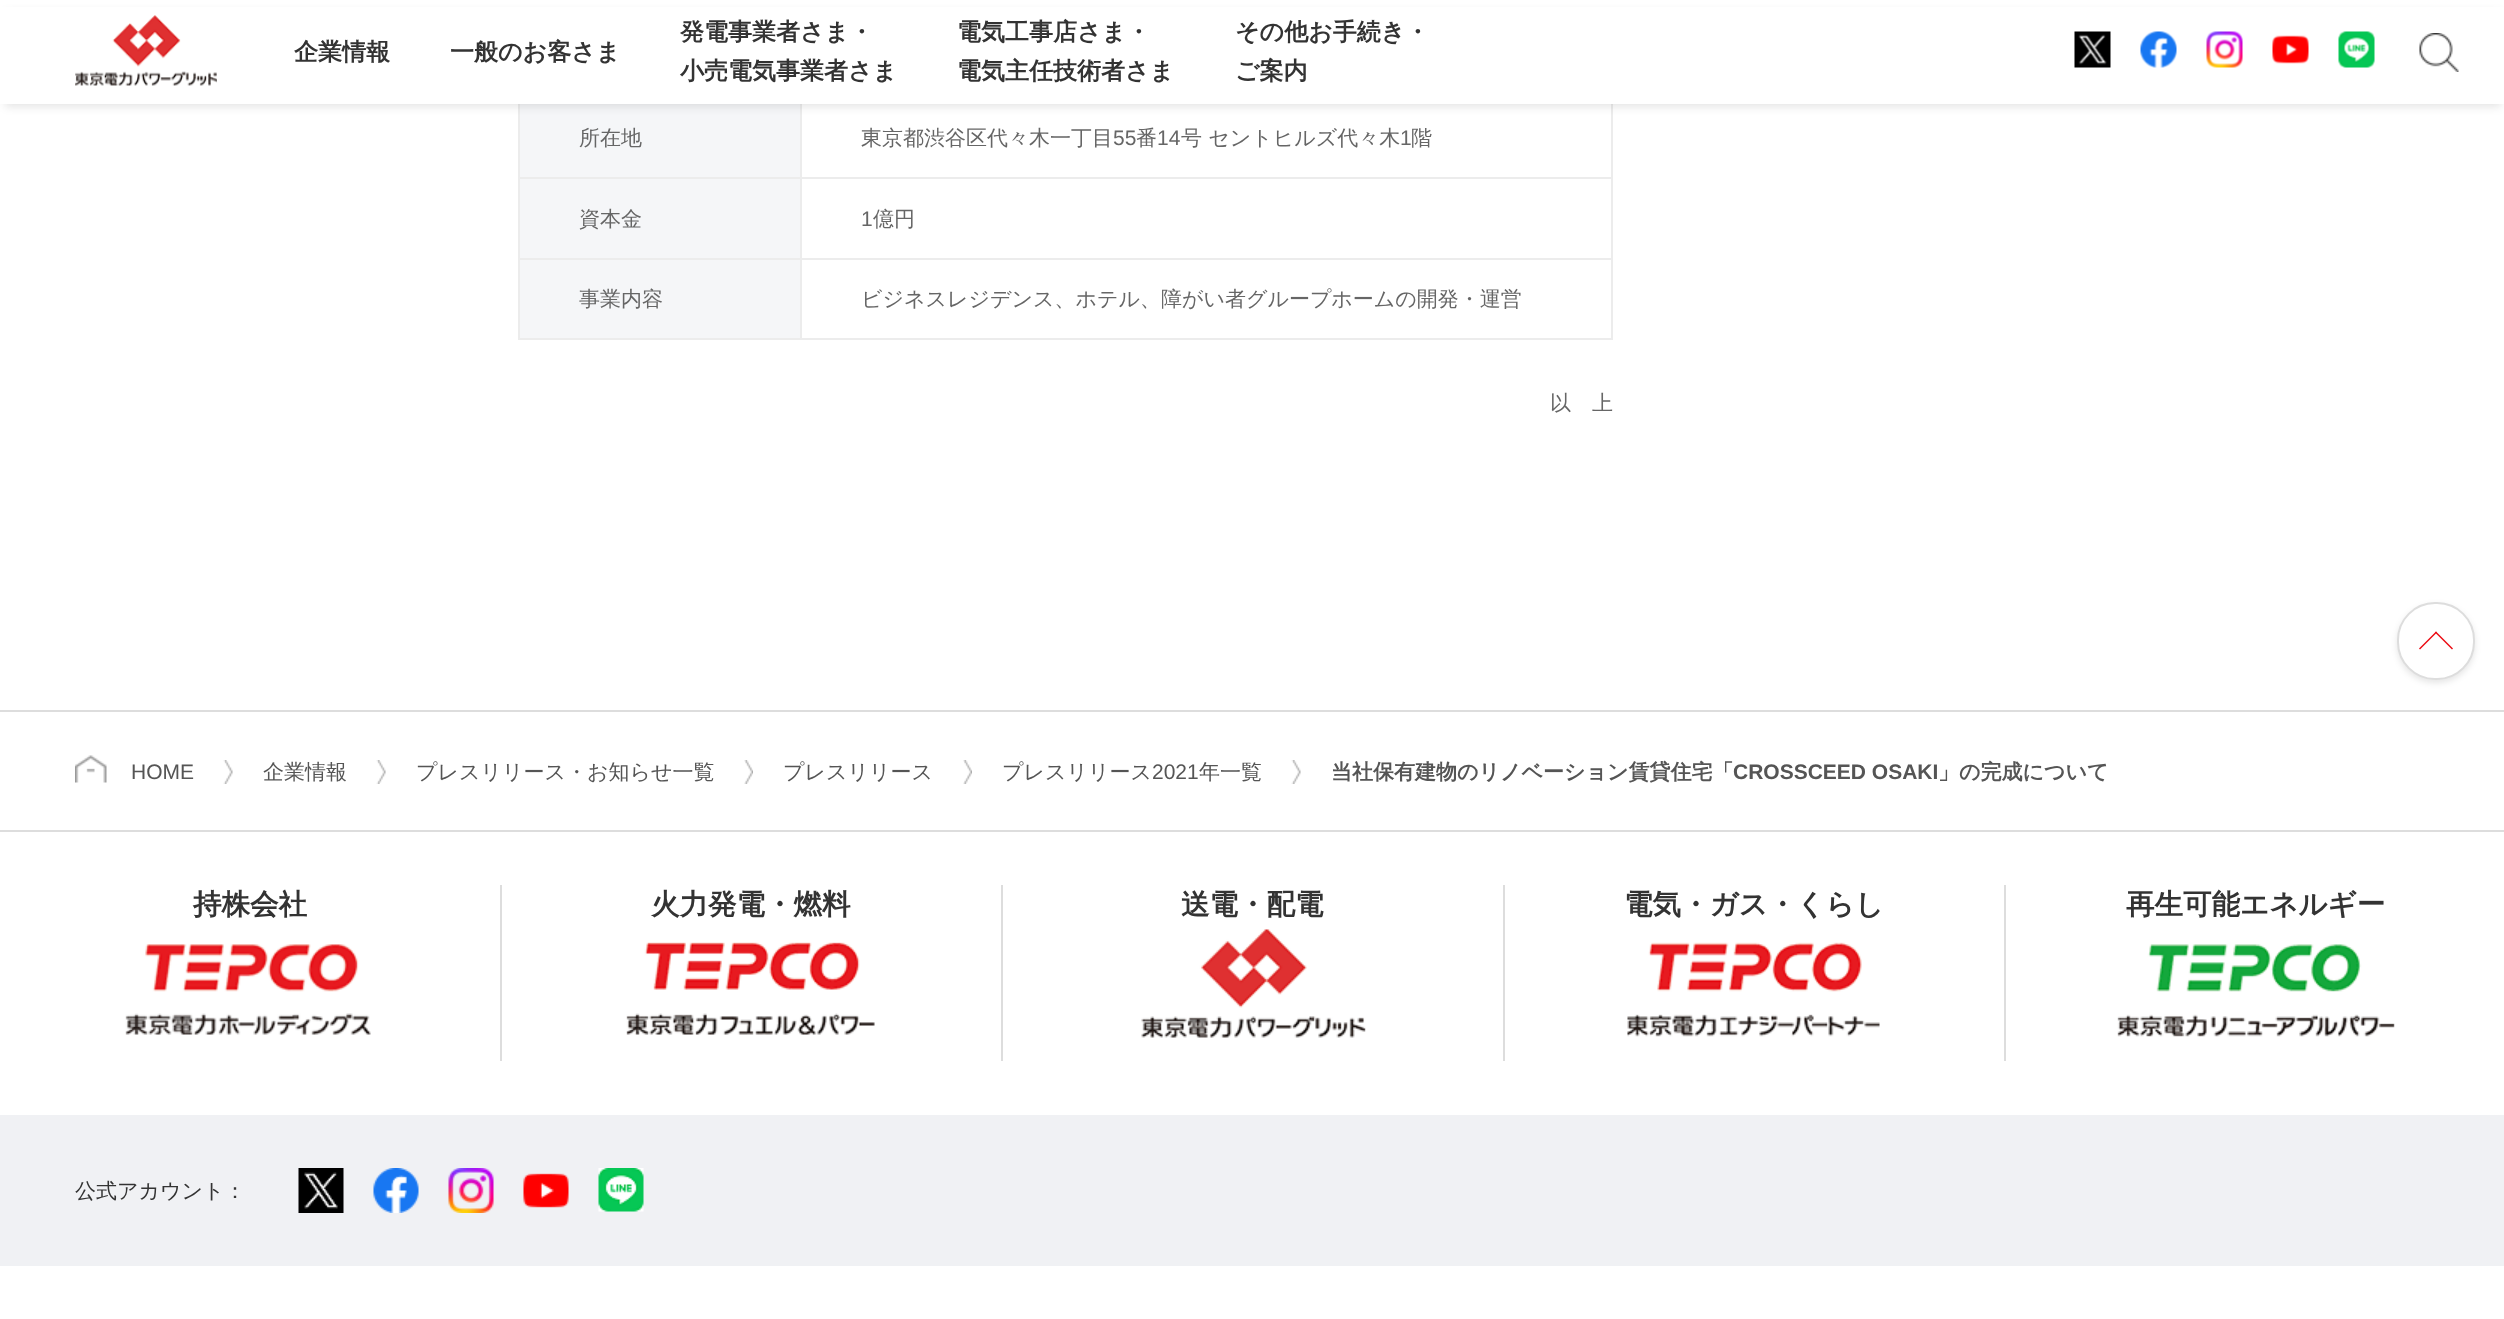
<svg xmlns="http://www.w3.org/2000/svg" width="2504" height="1319">
<style>
.a{font:bold 24px WenQuanYi Zen Hei;fill:#333}
.b{font:500 21px WenQuanYi Zen Hei;fill:#666}
.c{font:21px Liberation Sans;fill:#666}
.d{font:21px Liberation Sans;fill:#555}
.e{font:500 21px WenQuanYi Zen Hei;fill:#555}
.f{font:bold 21px WenQuanYi Zen Hei;fill:#555}
.g{font:bold 21px Liberation Sans;fill:#555}
.h{font:bold 28.5px WenQuanYi Zen Hei;fill:#333}
.i{font:500 21px WenQuanYi Zen Hei;fill:#333}
</style>
<rect width="100%" height="100%" fill="#fff"/>
<path fill="#f5f6f8" d="M520 104h280v73H520z"/>
<path fill="#ececec" d="M800 177h813v2H800z"/>
<path fill="#ececec" d="M800 258h813v2H800z"/>
<path fill="#ececec" d="M1611 258h2v81H1611z"/>
<path fill="#ececec" d="M800 338h813v2H800z"/>
<path fill="#ececec" d="M800 258h2v81H800z"/>
<path fill="#ececec" d="M518 258h283v2H518z"/>
<path fill="#ececec" d="M800 177h2v83H800z"/>
<path fill="#ececec" d="M518 177h283v2H518z"/>
<path fill="#ececec" d="M800 98h2v81H800z"/>
<path fill="#ececec" d="M518 338h283v2H518z"/>
<path fill="#ececec" d="M518 258h2v81H518z"/>
<path fill="#ececec" d="M518 98h2v162H518z"/>
<path fill="#ececec" d="M1611 98h2v162H1611z"/>
<path fill="#0000001a" filter="blur(4px)" d="M5 12h2496v95H5z"/>
<path fill="#fff" d="M0 7h2504v97H0z"/>
<image href="1.png" x="75" y="15" width="142" height="71"/>
<image href="2.png" x="2074" y="31" width="37" height="37"/>
<image href="3.png" x="2140" y="31" width="37" height="37"/>
<image href="4.png" x="2206" y="31" width="37" height="37"/>
<image href="5.png" x="2272" y="35" width="37" height="29"/>
<image href="6.png" x="2338" y="31" width="37" height="37"/>
<image href="7.png" x="2419" y="33" width="40" height="39"/>
<path fill="#f5f6f8" d="M520 179h280v79H520z"/>
<path fill="#f5f6f8" d="M520 260h280v78H520z"/>
<rect fill="#0000001a" filter="blur(3px)" x="2397" y="605" width="78" height="78" rx="38"/>
<rect fill="#fff" stroke="#ddd" stroke-width="2" x="2398" y="603" width="76" height="76" rx="37"/>
<path fill="#eb0810" d="M2419 648.5l17-17l1 1l-17 17z"/>
<path fill="#eb0810" d="M2435 632.5l1-1l17 17l-1 1z"/>
<path fill="#ddd" d="M0 710h2504v2H0z"/>
<path fill="#ddd" d="M0 830h2504v2H0z"/>
<image href="8.png" x="75" y="755" width="32" height="28"/>
<image href="9.png" x="223" y="760" width="10" height="24"/>
<image href="10.png" x="376" y="760" width="10" height="24"/>
<image href="11.png" x="744" y="760" width="9" height="24"/>
<image href="12.png" x="963" y="760" width="9" height="24"/>
<image href="10.png" x="1291" y="760" width="10" height="24"/>
<image href="13.png" x="125" y="944" width="246" height="91"/>
<path fill="#ddd" d="M500 885h2v176H500z"/>
<image href="14.png" x="626" y="942" width="249" height="93"/>
<path fill="#ddd" d="M1001 885h2v176H1001z"/>
<image href="15.png" x="1141" y="929" width="225" height="109"/>
<path fill="#ddd" d="M1503 885h2v176H1503z"/>
<image href="16.png" x="1627" y="942" width="253" height="95"/>
<path fill="#ddd" d="M2004 885h2v176H2004z"/>
<image href="17.png" x="2117" y="944" width="278" height="93"/>
<path fill="#f0f1f4" d="M0 1115h2504v151H0z"/>
<image href="18.png" x="298" y="1168" width="46" height="45"/>
<image href="19.png" x="373" y="1168" width="46" height="45"/>
<image href="20.png" x="448" y="1168" width="46" height="45"/>
<image href="21.png" x="523" y="1173" width="46" height="35"/>
<image href="22.png" x="598" y="1168" width="46" height="44"/>
<text class="a" x="294" y="60">企業情報</text>
<text class="a" x="450" y="60">一般のお客さま</text>
<text class="a" x="680" y="40">発電事業者さま・</text>
<text class="a" x="680" y="79">小売電気事業者さま</text>
<text class="a" x="957" y="40">電気工事店さま・</text>
<text class="a" x="957" y="79">電気主任技術者さま</text>
<text class="a" x="1235" y="40">その他お手続き・</text>
<text class="a" x="1235" y="79">ご案内</text>
<text class="b" x="579" y="145">所在地</text>
<text class="b" x="861" y="145">東京都渋谷区代々木一丁目</text>
<text class="c" x="1113" y="145">55</text>
<text class="b" x="1136" y="145">番</text>
<text class="c" x="1157" y="145">14</text>
<text class="b" x="1181" y="145">号 セントヒルズ代々木</text>
<text class="c" x="1400" y="145">1</text>
<text class="b" x="1411" y="145">階</text>
<text class="b" x="579" y="226">資本金</text>
<text class="c" x="861" y="226">1</text>
<text class="b" x="873" y="226">億円</text>
<text class="b" x="579" y="306">事業内容</text>
<text class="b" x="861" y="306">ビジネスレジデンス、ホテル、障がい者グループホームの開発・運営</text>
<text class="b" x="1550" y="410">以　上</text>
<text class="d" x="131" y="779">HOME</text>
<text class="e" x="263" y="779">企業情報</text>
<text class="e" x="416" y="779">プレスリリース・お知らせ一覧</text>
<text class="e" x="783" y="779">プレスリリース</text>
<text class="e" x="1002" y="779">プレスリリース</text>
<text class="d" x="1152" y="779">2021</text>
<text class="e" x="1199" y="779">年一覧</text>
<text class="f" x="1331" y="779">当社保有建物のリノベーション賃貸住宅「</text>
<text class="g" x="1733" y="779">CROSSCEED OSAKI</text>
<text class="f" x="1938" y="779">」の完成について</text>
<text class="h" x="193" y="914">持株会社</text>
<text class="h" x="651" y="914">火力発電・燃料</text>
<text class="h" x="1181" y="914">送電・配電</text>
<text class="h" x="1624" y="914">電気・ガス・くらし</text>
<text class="h" x="2126" y="914">再生可能エネルギー</text>
<text class="i" x="75" y="1198">公式アカウント：</text>
</svg>
